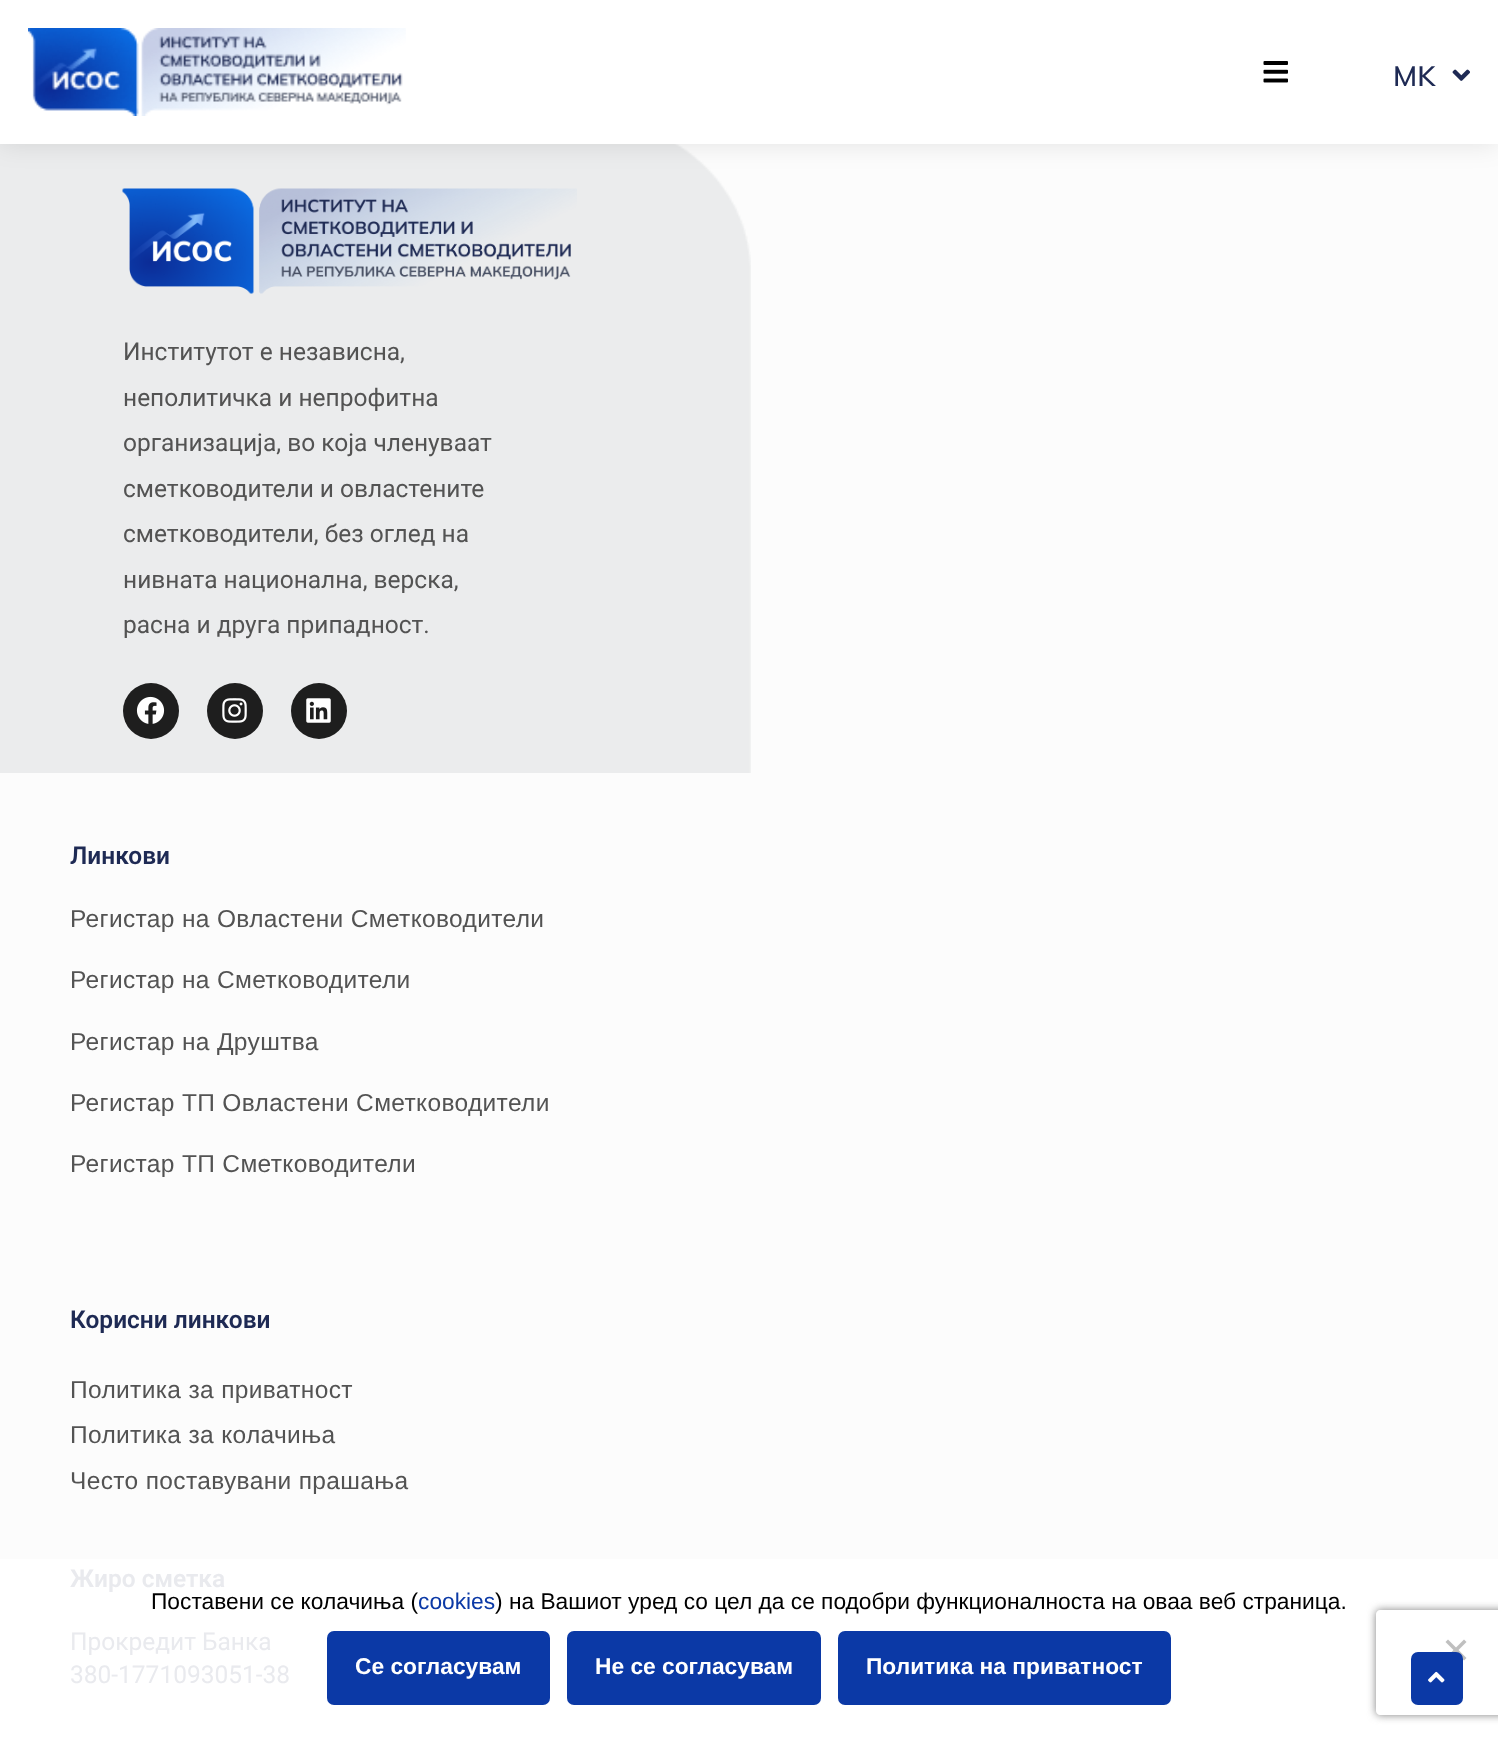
<svg xmlns="http://www.w3.org/2000/svg" width="1498" height="1738">
<style>
.a{font:600 28px Mulish;fill:#1e2a54}
.b{font:24.5px Roboto;fill:#535353}
.c{font:600 24.5px Roboto;fill:#1e2a54}
.d{font:24.5px Liberation Sans;letter-spacing:0.35px;fill:#535353}
.e{font:600 24.5px Roboto;fill:#e9eaee}
.f{font:24.5px Roboto;fill:#e9eaee}
.g{font:22.75px Liberation Sans;fill:#000}
.h{font:22.75px Liberation Sans;fill:#0b39a6}
.i{font:bold 22.75px Liberation Sans;fill:#fff}
</style>
<defs>
<clipPath id="clip1"><path d="M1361 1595h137v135h-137zm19 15h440c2 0 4 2 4 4v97c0 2-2 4-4 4h-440c-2 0-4-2-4-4v-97c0-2 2-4 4-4z" clip-rule="evenodd"/></clipPath>
</defs>
<rect width="100%" height="100%" fill="#fcfcfc"/>
<path fill="#fff" d="M0 1559h1498v179H0z"/>
<image href="4.png" x="0" y="144" width="751" height="629"/>
<path fill="#0000001a" filter="blur(13px)" d="M0 0h1498v144H0z"/>
<path fill="#fff" d="M0 0h1498v144H0z"/>
<image href="1.png" x="28" y="28" width="378" height="88"/>
<image href="2.png" x="1263" y="61" width="25" height="22"/>
<image href="3.png" x="1452" y="69" width="18" height="12"/>
<image href="5.png" x="122" y="188" width="455" height="106"/>
<circle fill="#1e1e1e" cx="151" cy="711" r="28"/>
<image href="6.png" x="136" y="696" width="29" height="28"/>
<circle fill="#1e1e1e" cx="235" cy="711" r="28"/>
<image href="7.png" x="222" y="698" width="25" height="25"/>
<circle fill="#1e1e1e" cx="319" cy="711" r="28"/>
<image href="8.png" x="306" y="698" width="25" height="25"/>
<path fill="#bfbfbf" d="M1464 1639.5l2.5 2.5l-18.5 18.5l-2.5-2.5z"/>
<path fill="#bfbfbf" d="M1445.5 1642l2.5-2.5l18.5 18.5l-2.5 2.5z"/>
<rect fill="#0b39a6" x="327" y="1631" width="223" height="74" rx="7"/>
<rect fill="#0b39a6" x="567" y="1631" width="254" height="74" rx="7"/>
<rect fill="#0b39a6" x="838" y="1631" width="333" height="74" rx="7"/>
<g clip-path="url(#clip1)">
<rect fill="#808080" filter="blur(4.5px)" x="1376" y="1610" width="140" height="105" rx="4"/>
</g>
<rect fill="#0b39a6" x="1411" y="1652" width="52" height="53" rx="7"/>
<image href="9.png" x="1428" y="1671" width="17" height="12"/>
<text class="a" x="1393" y="86">MK</text>
<text class="b" x="123" y="360">Институтот е независна,</text>
<text class="b" x="123" y="406">неполитичка и непрофитна</text>
<text class="b" x="123" y="451">организација, во која членуваат</text>
<text class="b" x="123" y="497">сметководители и овластените</text>
<text class="b" x="123" y="542">сметководители, без оглед на</text>
<text class="b" x="123" y="588">нивната национална, верска,</text>
<text class="b" x="123" y="633">расна и друга припадност.</text>
<text class="c" x="70" y="864">Линкови</text>
<text class="d" x="70" y="927">Регистар на Овластени Сметководители</text>
<text class="d" x="70" y="988">Регистар на Сметководители</text>
<text class="d" x="70" y="1050">Регистар на Друштва</text>
<text class="d" x="70" y="1111">Регистар ТП Овластени Сметководители</text>
<text class="d" x="70" y="1172">Регистар ТП Сметководители</text>
<text class="c" x="70" y="1328">Корисни линкови</text>
<text class="d" x="70" y="1398">Политика за приватност</text>
<text class="d" x="70" y="1443">Политика за колачиња</text>
<text class="d" x="70" y="1489">Често поставувани прашања</text>
<text class="e" x="70" y="1587">Жиро сметка</text>
<text class="f" x="70" y="1650">Прокредит Банка</text>
<text class="f" x="70" y="1683">380-1771093051-38</text>
<text class="g" x="151" y="1609">Поставени се колачиња (</text>
<text class="h" x="418" y="1609">cookies</text>
<text class="g" x="495" y="1609">) на Вашиот уред со цел да се подобри функционалноста на оваа веб страница.</text>
<text class="i" x="355" y="1674">Се согласувам</text>
<text class="i" x="595" y="1674">Не се согласувам</text>
<text class="i" x="866" y="1674">Политика на приватност</text>
</svg>
